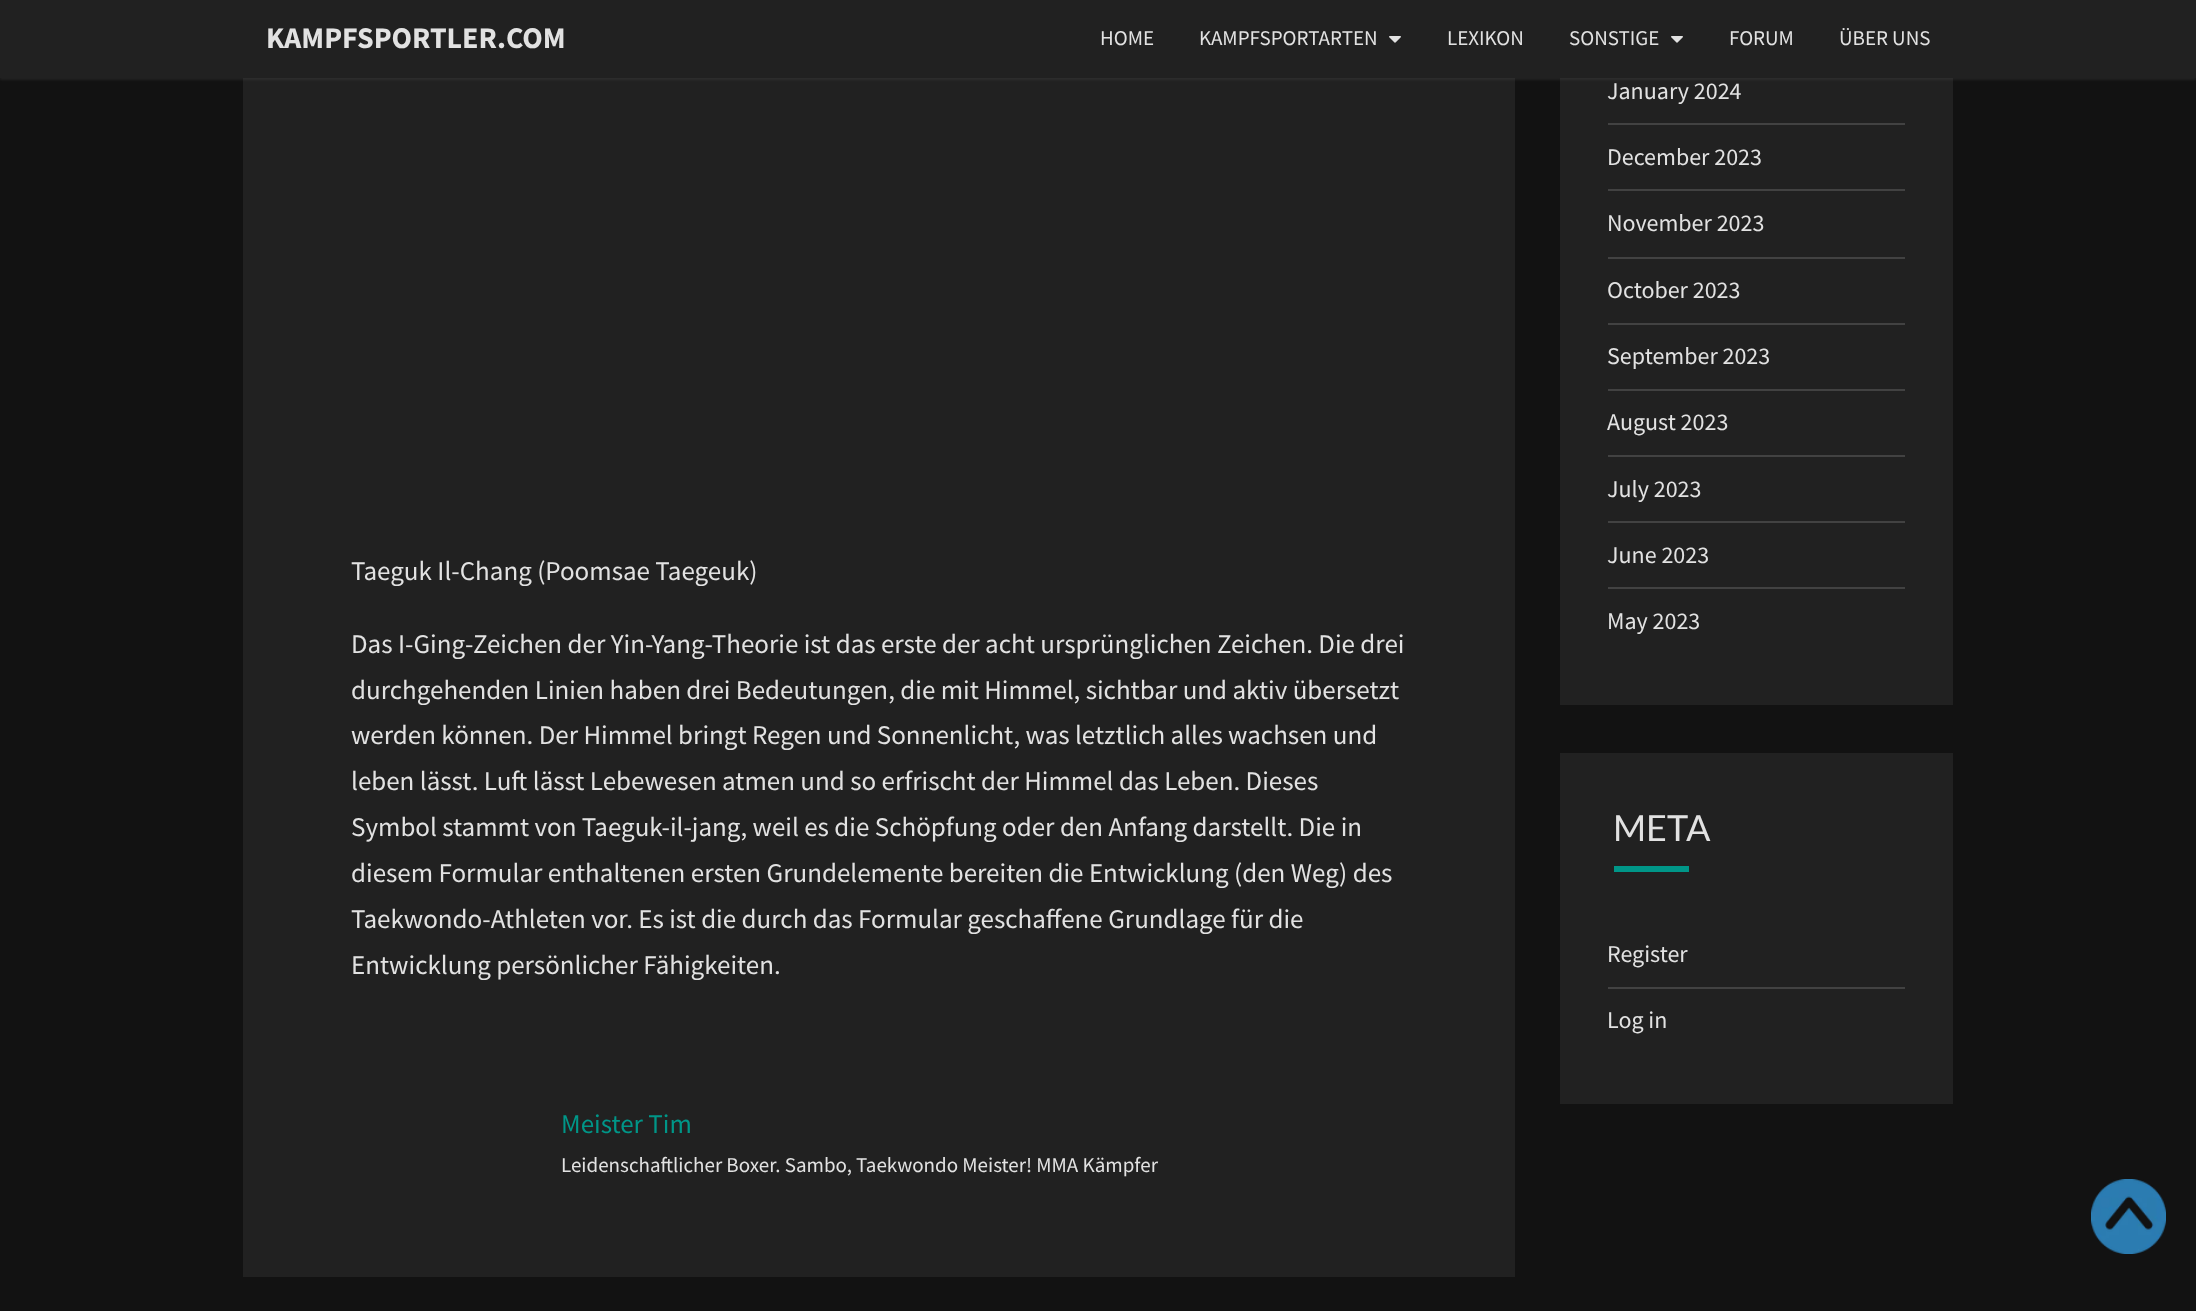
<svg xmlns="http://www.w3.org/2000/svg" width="2196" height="1311">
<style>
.a{font:bold 30px Source Sans Pro;fill:#e2e2e2}
.b{font:21px Source Sans Pro;fill:#e2e2e2}
.c{font:27px Source Sans Pro;fill:#e2e2e2}
.d{font:27px Source Sans Pro;fill:#009688}
.e{font:24px Source Sans Pro;fill:#e2e2e2}
.f{font:36px Lato;fill:#e2e2e2}
</style>
<rect width="100%" height="100%" fill="#121212"/>
<path fill="#212121" d="M243 78h1272v1199H243z"/>
<path fill="#212121" d="M1560 78h393v627H1560z"/>
<path fill="#64646433" filter="blur(1px)" d="M0 2h2196v78H0z"/>
<path fill="#212121" d="M0 0h2196v78H0z"/>
<image href="1.png" x="1389" y="36" width="12" height="7"/>
<image href="1.png" x="1671" y="36" width="12" height="7"/>
<path fill="#424242" d="M1608 123h297v2H1608z"/>
<path fill="#424242" d="M1608 189h297v2H1608z"/>
<path fill="#424242" d="M1608 257h297v2H1608z"/>
<path fill="#424242" d="M1608 323h297v2H1608z"/>
<path fill="#424242" d="M1608 389h297v2H1608z"/>
<path fill="#424242" d="M1608 455h297v2H1608z"/>
<path fill="#424242" d="M1608 521h297v2H1608z"/>
<path fill="#424242" d="M1608 587h297v2H1608z"/>
<path fill="#212121" d="M1560 753h393v351H1560z"/>
<path fill="#009688" d="M1614 866h75v6H1614z"/>
<path fill="#424242" d="M1608 987h297v2H1608z"/>
<image href="2.png" x="2091" y="1179" width="75" height="75"/>
<text class="a" x="266" y="48">KAMPFSPORTLER.COM</text>
<text class="b" x="1100" y="45">HOME</text>
<text class="b" x="1199" y="45">KAMPFSPORTARTEN</text>
<text class="b" x="1447" y="45">LEXIKON</text>
<text class="b" x="1569" y="45">SONSTIGE</text>
<text class="b" x="1729" y="45">FORUM</text>
<text class="b" x="1839" y="45">ÜBER UNS</text>
<text class="c" x="351" y="580">Taeguk Il-Chang (Poomsae Taegeuk)</text>
<text class="c" x="351" y="653">Das I-Ging-Zeichen der Yin-Yang-Theorie ist das erste der acht ursprünglichen Zeichen. Die drei</text>
<text class="c" x="351" y="699">durchgehenden Linien haben drei Bedeutungen, die mit Himmel, sichtbar und aktiv übersetzt</text>
<text class="c" x="351" y="744">werden können. Der Himmel bringt Regen und Sonnenlicht, was letztlich alles wachsen und</text>
<text class="c" x="351" y="790">leben lässt. Luft lässt Lebewesen atmen und so erfrischt der Himmel das Leben. Dieses</text>
<text class="c" x="351" y="836">Symbol stammt von Taeguk-il-jang, weil es die Schöpfung oder den Anfang darstellt. Die in</text>
<text class="c" x="351" y="882">diesem Formular enthaltenen ersten Grundelemente bereiten die Entwicklung (den Weg) des</text>
<text class="c" x="351" y="928">Taekwondo-Athleten vor. Es ist die durch das Formular geschaffene Grundlage für die</text>
<text class="c" x="351" y="974">Entwicklung persönlicher Fähigkeiten.</text>
<text class="d" x="561" y="1133">Meister Tim</text>
<text class="b" x="561" y="1172">Leidenschaftlicher Boxer. Sambo, Taekwondo Meister! MMA Kämpfer</text>
<text class="e" x="1607" y="99">January 2024</text>
<text class="e" x="1607" y="165">December 2023</text>
<text class="e" x="1607" y="231">November 2023</text>
<text class="e" x="1607" y="298">October 2023</text>
<text class="e" x="1607" y="364">September 2023</text>
<text class="e" x="1607" y="430">August 2023</text>
<text class="e" x="1607" y="497">July 2023</text>
<text class="e" x="1607" y="563">June 2023</text>
<text class="e" x="1607" y="629">May 2023</text>
<text class="f" x="1613" y="841">META</text>
<text class="e" x="1607" y="962">Register</text>
<text class="e" x="1607" y="1028">Log in</text>
</svg>
